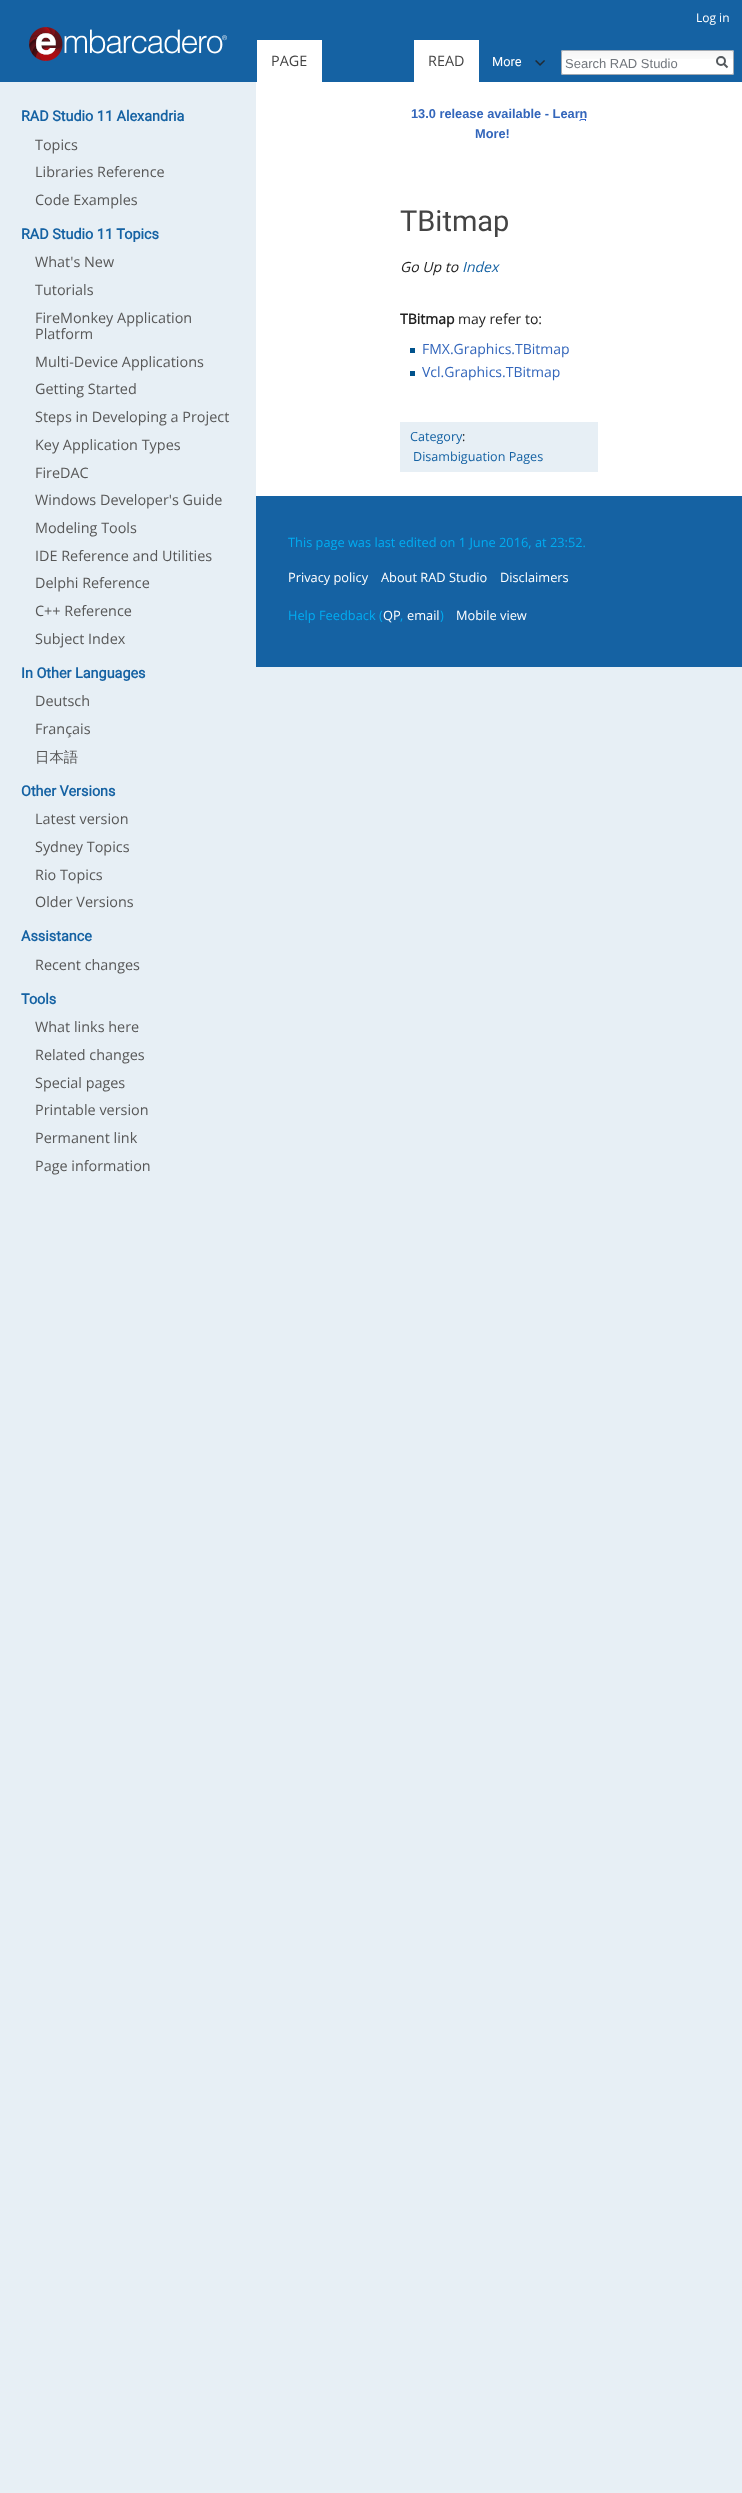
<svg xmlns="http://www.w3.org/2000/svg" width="742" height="2493">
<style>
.a{font:12px Open Sans;fill:#fff}
.b{font:14.4px Open Sans;fill:#444}
.c{font:12.8px Roboto;fill:#fff}
.d{font:13px Liberation Sans;fill:#72777d}
.e{font:bold 14.4px Roboto;fill:#1562a3}
.f{font:14.4px Open Sans;fill:#575757}
.g{font:500 14.4px WenQuanYi Zen Hei;fill:#575757}
.h{font:bold 12.8px Liberation Sans;fill:#36b}
.i{font:29px Roboto;fill:#444}
.j{font:italic 14px Open Sans;fill:#222}
.k{font:italic 14px Open Sans;fill:#1562a3}
.l{font:bold 14px Open Sans;fill:#222}
.m{font:14px Open Sans;fill:#222}
.n{font:14px Open Sans;fill:#36b}
.o{font:12.6px Open Sans;fill:#1562a3}
.p{font:12.6px Open Sans;fill:#222}
.q{font:12.8px Open Sans;fill:#00adf2}
.r{font:12.8px Open Sans;fill:#fff}
</style>
<rect width="100%" height="100%" fill="#e7eff5"/>
<path fill="#1562a3" d="M0 0h742v82H0z"/>
<path fill="#fff" d="M257 40h65v42H257z"/>
<path fill="#fff" d="M414 40h65v42H414z"/>
<image href="1.png" x="535" y="60" width="10" height="6"/>
<rect fill="#fff" x="561" y="50" width="173" height="25" rx="2"/>
<image href="2.png" x="561" y="51" width="173" height="8"/>
<rect fill="none" stroke="#a2a9b1" x="561.5" y="50.5" width="172" height="24" rx="1.5"/>
<path fill="none" stroke="#54595d" stroke-width="2" d="M727.5 67.5l-4-4"/>
<circle fill="none" stroke="#54595d" stroke-width="2" cx="721" cy="61" r="4"/>
<image href="3.png" x="29" y="27" width="198" height="34"/>
<path fill="#fff" d="M256 82h486v414H256z"/>
<image href="4.png" x="579" y="119" width="7" height="2"/>
<path fill="#00528c" d="M410 348h5v5H410z"/>
<path fill="#00528c" d="M410 371h5v5H410z"/>
<path fill="#e7eff5" d="M400 422h198v50H400z"/>
<path fill="#1562a3" d="M256 496h486v171H256z"/>
<text class="a" x="696" y="22">Log in</text>
<text class="b" x="271" y="66">PAGE</text>
<text class="b" x="428" y="66">READ</text>
<text class="c" x="492" y="66">More</text>
<text class="d" x="565" y="68">Search RAD Studio</text>
<text class="e" x="21" y="121">RAD Studio 11 Alexandria</text>
<text class="f" x="35" y="150">Topics</text>
<text class="f" x="35" y="177">Libraries Reference</text>
<text class="f" x="35" y="205">Code Examples</text>
<text class="e" x="21" y="239">RAD Studio 11 Topics</text>
<text class="f" x="35" y="267">What's New</text>
<text class="f" x="35" y="295">Tutorials</text>
<text class="f" x="35" y="323">FireMonkey Application</text>
<text class="f" x="35" y="339">Platform</text>
<text class="f" x="35" y="367">Multi-Device Applications</text>
<text class="f" x="35" y="394">Getting Started</text>
<text class="f" x="35" y="422">Steps in Developing a Project</text>
<text class="f" x="35" y="450">Key Application Types</text>
<text class="f" x="35" y="478">FireDAC</text>
<text class="f" x="35" y="505">Windows Developer's Guide</text>
<text class="f" x="35" y="533">Modeling Tools</text>
<text class="f" x="35" y="561">IDE Reference and Utilities</text>
<text class="f" x="35" y="588">Delphi Reference</text>
<text class="f" x="35" y="616">C++ Reference</text>
<text class="f" x="35" y="644">Subject Index</text>
<text class="e" x="21" y="678">In Other Languages</text>
<text class="f" x="35" y="706">Deutsch</text>
<text class="f" x="35" y="734">Français</text>
<text class="g" x="35" y="762">日本語</text>
<text class="e" x="21" y="796">Other Versions</text>
<text class="f" x="35" y="824">Latest version</text>
<text class="f" x="35" y="852">Sydney Topics</text>
<text class="f" x="35" y="880">Rio Topics</text>
<text class="f" x="35" y="907">Older Versions</text>
<text class="e" x="21" y="941">Assistance</text>
<text class="f" x="35" y="970">Recent changes</text>
<text class="e" x="21" y="1004">Tools</text>
<text class="f" x="35" y="1032">What links here</text>
<text class="f" x="35" y="1060">Related changes</text>
<text class="f" x="35" y="1088">Special pages</text>
<text class="f" x="35" y="1115">Printable version</text>
<text class="f" x="35" y="1143">Permanent link</text>
<text class="f" x="35" y="1171">Page information</text>
<text class="h" x="411" y="118">13.0 release available - Learn</text>
<text class="h" x="475" y="138">More!</text>
<text class="i" x="400" y="231">TBitmap</text>
<text class="j" x="400" y="272">Go Up to</text>
<text class="k" x="462" y="272">Index</text>
<text class="l" x="400" y="324">TBitmap</text>
<text class="m" x="458" y="324">may refer to:</text>
<text class="n" x="422" y="354">FMX.Graphics.TBitmap</text>
<text class="n" x="422" y="377">Vcl.Graphics.TBitmap</text>
<text class="o" x="410" y="441">Category</text>
<text class="p" x="462" y="441">:</text>
<text class="o" x="413" y="461">Disambiguation Pages</text>
<text class="q" x="288" y="547">This page was last edited on 1 June 2016, at 23:52.</text>
<text class="r" x="288" y="582">Privacy policy</text>
<text class="r" x="381" y="582">About RAD Studio</text>
<text class="r" x="500" y="582">Disclaimers</text>
<text class="q" x="288" y="620">Help Feedback (</text>
<text class="r" x="383" y="620">QP</text>
<text class="q" x="400" y="620">,</text>
<text class="r" x="407" y="620">email</text>
<text class="q" x="440" y="620">)</text>
<text class="r" x="456" y="620">Mobile view</text>
</svg>
